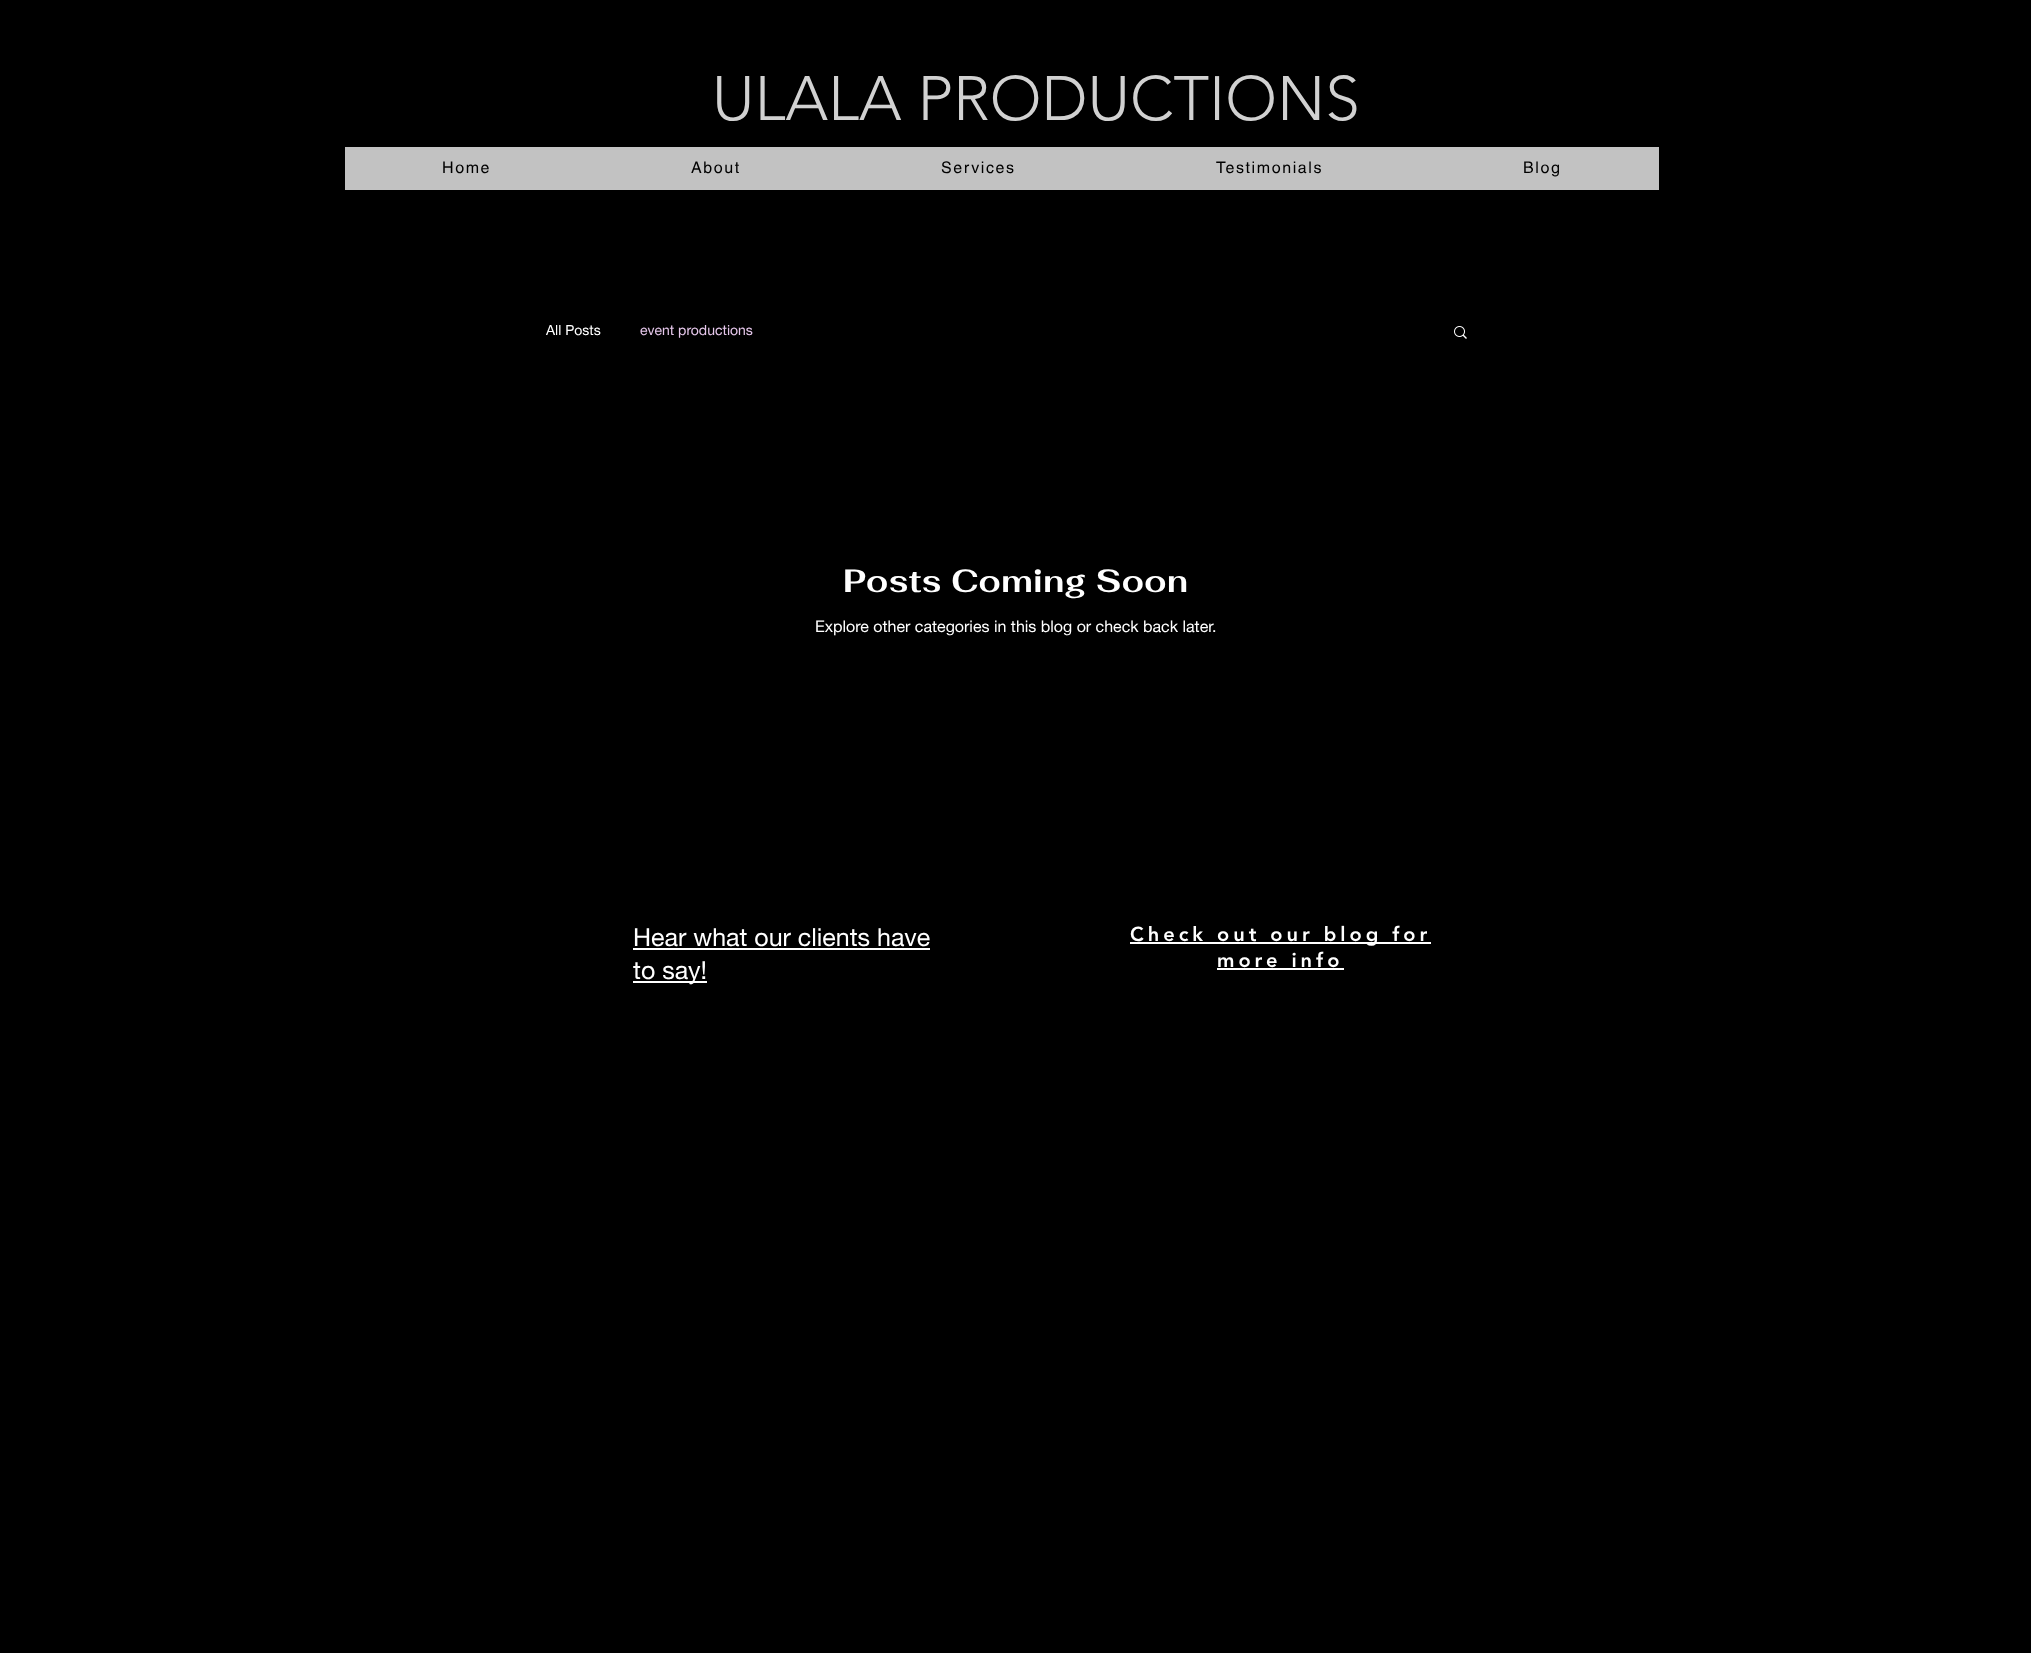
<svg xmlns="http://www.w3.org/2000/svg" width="2031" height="1653">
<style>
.a{font:300 62px 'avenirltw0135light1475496';fill:#d1d1d1}
.b{font:16px helvetica;letter-spacing:1.6px;fill:#000}
.c{font:14px helvetica neue;fill:#fff}
.d{font:14px helvetica neue;fill:#e6c7eb}
.e{font:bold 32px Fahkwang;fill:#fff}
.f{font:16px helvetica neue;fill:#fff}
.g{font:25px helvetica neue;fill:#fff}
.h{font:900 20px 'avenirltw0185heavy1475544';letter-spacing:4px;fill:#fff}
</style>
<rect width="100%" height="100%" fill="#000"/>
<path fill="#c2c2c2" d="M345 147h1314v43H345z"/>
<image href="1.png" x="1454" y="326" width="13" height="13"/>
<path fill="#fff" d="M633 948h297v2H633z"/>
<path fill="#fff" d="M633 981h74v2H633z"/>
<path fill="#fff" d="M1130 942h301v2H1130z"/>
<path fill="#fff" d="M1217 968h127v2H1217z"/>
<text class="a" x="712" y="120">ULALA PRODUCTIONS</text>
<text class="b" x="442" y="173">Home</text>
<text class="b" x="691" y="173">About</text>
<text class="b" x="941" y="173">Services</text>
<text class="b" x="1216" y="173">Testimonials</text>
<text class="b" x="1523" y="173">Blog</text>
<text class="c" x="546" y="335">All Posts</text>
<text class="d" x="640" y="335">event productions</text>
<text class="e" x="843" y="592">Posts Coming Soon</text>
<text class="f" x="815" y="632">Explore other categories in this blog or check back later.</text>
<text class="g" x="633" y="946">Hear what our clients have</text>
<text class="g" x="633" y="979">to say!</text>
<text class="h" x="1130" y="941">Check out our blog for</text>
<text class="h" x="1217" y="967">more info</text>
</svg>
